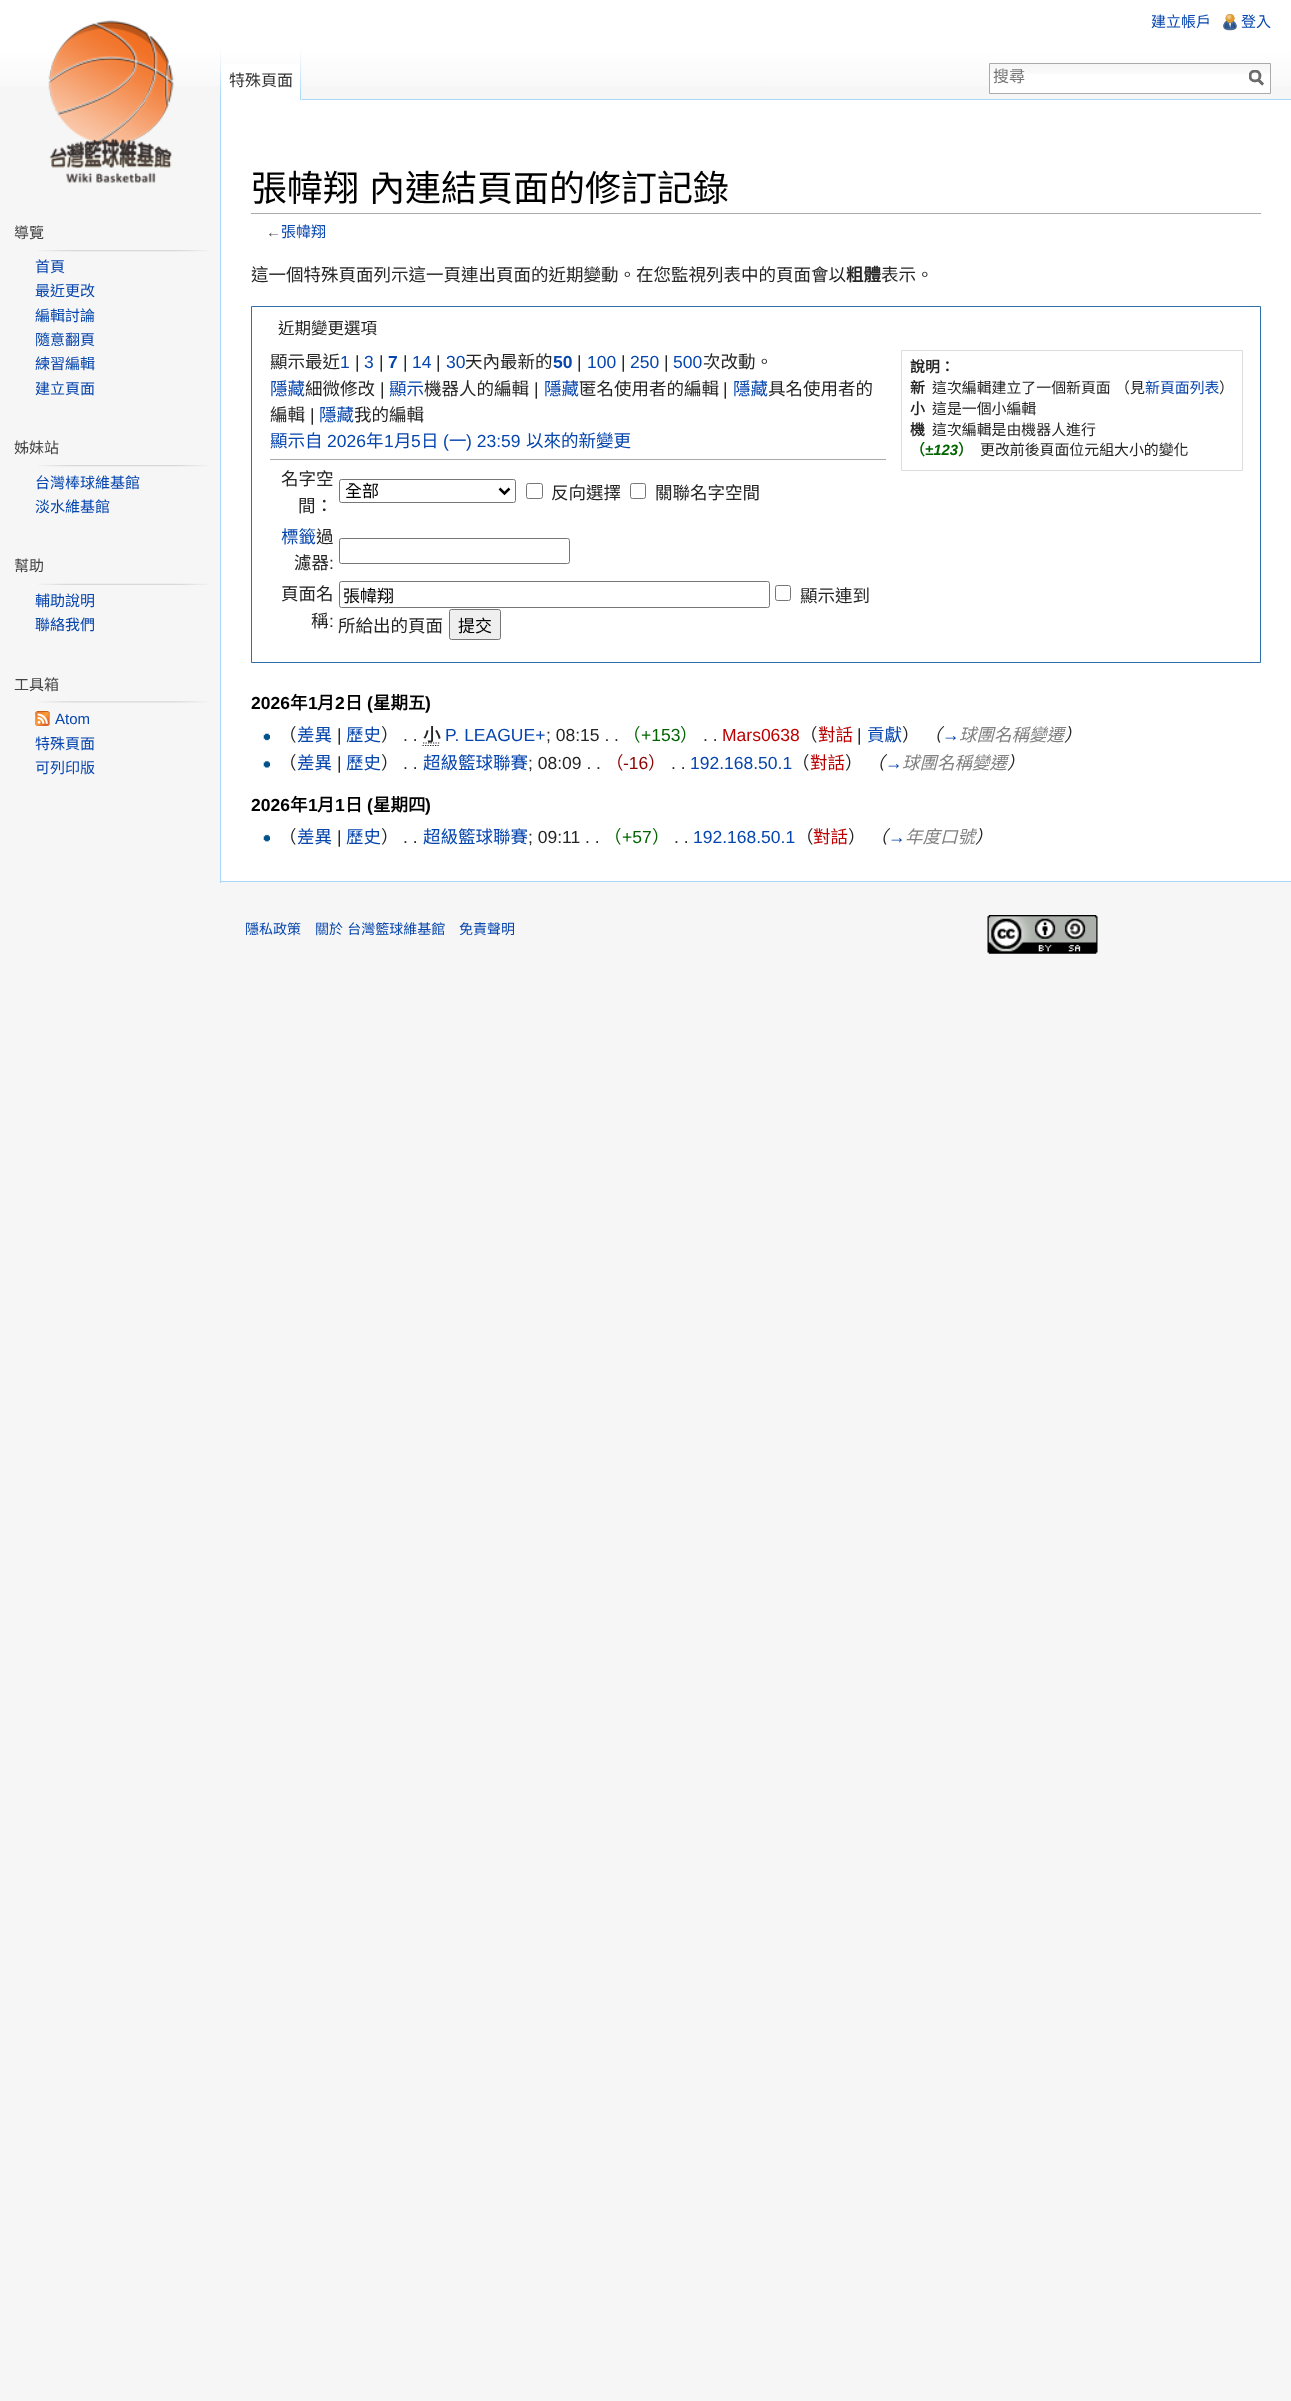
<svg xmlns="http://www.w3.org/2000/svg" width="1291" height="2401">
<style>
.a{font:15px Noto Sans CJK TC;fill:#0645ad}
.b{font:16px Noto Sans CJK TC;fill:#333}
.c{font:16px Noto Sans CJK TC;fill:#757575}
.d{font:15px Noto Sans CJK TC;fill:#444}
.e{font:15px Liberation Sans;fill:#0645ad}
.f{font:36px Noto Sans CJK TC;fill:#000}
.g{font:15px Liberation Sans;fill:#545454}
.h{font:17.5px Noto Sans CJK TC;fill:#252525}
.i{font:bold 17.5px Noto Sans CJK TC;fill:#252525}
.j{font:16.5px Noto Sans CJK TC;fill:#252525}
.k{font:17.5px Liberation Sans;fill:#0645ad}
.l{font:17.5px Liberation Sans;fill:#252525}
.m{font:bold 17.5px Liberation Sans;fill:#0645ad}
.n{font:bold 14.9px Noto Sans CJK TC;fill:#252525}
.o{font:14.9px Noto Sans CJK TC;fill:#252525}
.p{font:14.9px Noto Sans CJK TC;fill:#0645ad}
.q{font:bold 14.9px Noto Sans CJK TC;fill:#006400}
.r{font:italic bold 14.9px Liberation Sans;fill:#006400}
.s{font:17.5px Noto Sans CJK TC;fill:#0645ad}
.t{font:17px Noto Sans CJK TC;fill:#000}
.u{font:bold 17.5px Liberation Sans;fill:#000}
.v{font:bold 17.5px Noto Sans CJK TC;fill:#000}
.w{font:17.5px Noto Sans CJK TC;fill:#006400}
.x{font:17.5px Liberation Sans;fill:#006400}
.y{font:17.5px Liberation Sans;fill:#ba0000}
.z{font:17.5px Noto Sans CJK TC;fill:#ba0000}
.a1{font:italic 17.5px Noto Sans CJK TC;fill:#252525}
.b1{font:italic 17.5px Liberation Sans;fill:#0645ad}
.c1{font:italic 17.5px Noto Sans CJK TC;fill:#808080}
.d1{font:17.5px Noto Sans CJK TC;fill:#8b0000}
.e1{font:17.5px Liberation Sans;fill:#8b0000}
.f1{font:14px Noto Sans CJK TC;fill:#0645ad}
</style>
<defs>
<linearGradient id="g1" gradientUnits="userSpaceOnUse" x1="646" y1="0" x2="646" y2="100"><stop offset="0.5" stop-color="#fff"/><stop offset="1" stop-color="#f6f6f6"/></linearGradient>
<clipPath id="clip1"><path d="M1249 70h15v16H1249z"/></clipPath>
</defs>
<rect width="100%" height="100%" fill="#f6f6f6"/>
<path fill="url(#g1)" d="M0 0h1291v86H0z"/>
<image href="1.png" x="1223" y="14" width="14" height="17"/>
<image href="2.png" x="220" y="50" width="1" height="49"/>
<path fill="#fff" d="M221 64h81v36H221z"/>
<image href="3.png" x="300" y="50" width="2" height="50"/>
<path fill="#fff" d="M990 74h280v19H990z"/>
<image href="4.png" x="990" y="64" width="280" height="10"/>
<path fill="none" stroke="#aaa" d="M989.5 63.5h281v30H989.5z"/>
<path fill="none" stroke="#6c6c6c" stroke-width="2.5" d="M1263 84.5l-5-5"/>
<g clip-path="url(#clip1)">
<circle fill="none" stroke="#6c6c6c" stroke-width="2.5" cx="1255" cy="76" r="5"/>
</g>
<path fill="none" stroke="#6c6c6c" stroke-width="2.5" d="M1263 84.5l-5-5"/>
<g clip-path="url(#clip1)">
<circle fill="none" stroke="#6c6c6c" stroke-width="2.5" cx="1255" cy="76" r="5"/>
</g>
<image href="5.png" x="48" y="20" width="126" height="163"/>
<image href="6.png" x="38" y="250" width="170" height="2"/>
<image href="6.png" x="38" y="465" width="170" height="2"/>
<image href="7.png" x="38" y="583" width="170" height="2"/>
<image href="8.png" x="38" y="701" width="170" height="2"/>
<image href="9.png" x="35" y="711" width="15" height="15"/>
<path fill="#fff" d="M221 100h1070v781H221z"/>
<path fill="#a7d7f9" d="M302 99h989v1H302z"/>
<path fill="#a7d7f9" d="M220 881h1071v1H220z"/>
<path fill="#a7d7f9" d="M220 99h1v784H220z"/>
<path fill="#aaa" d="M251 213h1010v1H251z"/>
<path fill="none" stroke="#2f6fab" d="M251.5 306.5h1009v356H251.5z"/>
<path fill="none" stroke="#ddd" d="M901.5 350.5h341v120H901.5z"/>
<path fill="#aaa" d="M270 459h616v1H270z"/>
<rect fill="none" stroke="#767676" x="339.5" y="479.5" width="176" height="23" rx="2"/>
<path fill="none" stroke="#000" stroke-width="2.5" d="M499.5 488.5l5 5l5-5"/>
<rect fill="none" stroke="#767676" x="526.5" y="483.5" width="16" height="15" rx="2"/>
<rect fill="none" stroke="#767676" x="630.5" y="483.5" width="15" height="15" rx="2"/>
<rect fill="none" stroke="#767676" x="339.5" y="538.5" width="230" height="25" rx="2"/>
<rect fill="none" stroke="#767676" x="339.5" y="581.5" width="430" height="26" rx="2"/>
<rect fill="none" stroke="#767676" x="775.5" y="585.5" width="15" height="15" rx="2"/>
<rect fill="#efefef" stroke="#767676" x="449.5" y="609.5" width="51" height="30" rx="2"/>
<image href="10.png" x="263" y="733" width="7" height="8"/>
<path fill="none" stroke="#252525" stroke-width="1.2" stroke-dasharray="1.25 1.25" d="M422.5 745.5h17.5m-17-2.5h17.5"/>
<image href="11.png" x="263" y="761" width="7" height="7"/>
<image href="12.png" x="263" y="834" width="7" height="8"/>
<image href="13.png" x="987" y="915" width="111" height="39"/>
<text class="a" x="1151" y="27">建立帳戶</text>
<text class="a" x="1241" y="27">登入</text>
<text class="b" x="229" y="86">特殊頁面</text>
<text class="c" x="993" y="82">搜尋</text>
<text class="d" x="14" y="238">導覽</text>
<text class="a" x="35" y="272">首頁</text>
<text class="a" x="35" y="296">最近更改</text>
<text class="a" x="35" y="321">編輯討論</text>
<text class="a" x="35" y="345">隨意翻頁</text>
<text class="a" x="35" y="369">練習編輯</text>
<text class="a" x="35" y="394">建立頁面</text>
<text class="d" x="14" y="453">姊妹站</text>
<text class="a" x="35" y="488">台灣棒球維基館</text>
<text class="a" x="35" y="512">淡水維基館</text>
<text class="d" x="14" y="571">幫助</text>
<text class="a" x="35" y="606">輔助說明</text>
<text class="a" x="35" y="630">聯絡我們</text>
<text class="d" x="14" y="690">工具箱</text>
<text class="e" x="55" y="724">Atom</text>
<text class="a" x="35" y="749">特殊頁面</text>
<text class="a" x="35" y="773">可列印版</text>
<text class="f" x="251" y="201" word-spacing="2">張幃翔 內連結頁面的修訂記錄</text>
<text class="g" x="266" y="237">←</text>
<text class="a" x="281" y="237">張幃翔</text>
<text class="h" x="251" y="281">這一個特殊頁面列示這一頁連出頁面的近期變動。在您監視列表中的頁面會以</text>
<text class="i" x="846" y="281">粗體</text>
<text class="h" x="881" y="281">表示。</text>
<text class="j" x="278" y="334">近期變更選項</text>
<text class="h" x="270" y="368">顯示最近</text>
<text class="k" x="340" y="368">1</text>
<text class="l" x="355" y="368">|</text>
<text class="k" x="364" y="368">3</text>
<text class="l" x="379" y="368">|</text>
<text class="m" x="388" y="368">7</text>
<text class="l" x="403" y="368">|</text>
<text class="k" x="412" y="368">14</text>
<text class="l" x="436" y="368">|</text>
<text class="k" x="446" y="368">30</text>
<text class="h" x="465" y="368">天內最新的</text>
<text class="m" x="553" y="368">50</text>
<text class="l" x="577" y="368">|</text>
<text class="k" x="587" y="368">100</text>
<text class="l" x="621" y="368">|</text>
<text class="k" x="630" y="368">250</text>
<text class="l" x="664" y="368">|</text>
<text class="k" x="673" y="368">500</text>
<text class="h" x="703" y="368">次改動。</text>
<text class="n" x="910" y="372">說明：</text>
<text class="n" x="910" y="393">新</text>
<text class="o" x="932" y="393" word-spacing="1">這次編輯建立了一個新頁面 （見</text>
<text class="p" x="1145" y="393">新頁面列表</text>
<text class="o" x="1219" y="393">）</text>
<text class="n" x="910" y="414">小</text>
<text class="o" x="932" y="414">這是一個小編輯</text>
<text class="n" x="910" y="435">機</text>
<text class="o" x="932" y="435">這次編輯是由機器人進行</text>
<text class="q" x="910" y="455">（</text>
<text class="r" x="925" y="455">±123</text>
<text class="q" x="958" y="455">）</text>
<text class="o" x="980" y="455">更改前後頁面位元組大小的變化</text>
<text class="s" x="270" y="395">隱藏</text>
<text class="h" x="305" y="395">細微修改</text>
<text class="l" x="380" y="395">|</text>
<text class="s" x="389" y="395">顯示</text>
<text class="h" x="424" y="395">機器人的編輯</text>
<text class="l" x="534" y="395">|</text>
<text class="s" x="544" y="395">隱藏</text>
<text class="h" x="579" y="395">匿名使用者的編輯</text>
<text class="l" x="723" y="395">|</text>
<text class="s" x="733" y="395">隱藏</text>
<text class="h" x="768" y="395">具名使用者的</text>
<text class="h" x="270" y="421">編輯</text>
<text class="l" x="310" y="421">|</text>
<text class="s" x="319" y="421">隱藏</text>
<text class="h" x="354" y="421">我的編輯</text>
<text class="s" x="270" y="447">顯示自</text>
<text class="k" x="327" y="447">2026</text>
<text class="s" x="366" y="447">年</text>
<text class="k" x="384" y="447">1</text>
<text class="s" x="394" y="447">月</text>
<text class="k" x="411" y="447">5</text>
<text class="s" x="421" y="447">日</text>
<text class="k" x="443" y="447">(</text>
<text class="s" x="449" y="447">一</text>
<text class="k" x="466" y="447">) 23:59</text>
<text class="s" x="526" y="447">以來的新變更</text>
<text class="h" x="281" y="485">名字空</text>
<text class="h" x="298" y="512">間：</text>
<text class="t" x="345" y="497">全部</text>
<text class="h" x="551" y="499">反向選擇</text>
<text class="h" x="655" y="499">關聯名字空間</text>
<text class="s" x="281" y="543">標籤</text>
<text class="h" x="316" y="543">過</text>
<text class="h" x="294" y="569">濾器</text>
<text class="l" x="329" y="569">:</text>
<text class="h" x="281" y="600">頁面名</text>
<text class="h" x="311" y="627">稱</text>
<text class="l" x="329" y="627">:</text>
<text class="t" x="343" y="602">張幃翔</text>
<text class="h" x="800" y="602">顯示連到</text>
<text class="h" x="338" y="632">所給出的頁面</text>
<text class="t" x="458" y="632">提交</text>
<text class="u" x="251" y="709">2026</text>
<text class="v" x="290" y="709">年</text>
<text class="u" x="308" y="709">1</text>
<text class="v" x="317" y="709">月</text>
<text class="u" x="335" y="709">2</text>
<text class="v" x="345" y="709">日</text>
<text class="u" x="367" y="709">(</text>
<text class="v" x="373" y="709">星期五</text>
<text class="u" x="425" y="709">)</text>
<text class="h" x="279" y="741">（</text>
<text class="s" x="297" y="741">差異</text>
<text class="l" x="337" y="741">|</text>
<text class="s" x="346" y="741">歷史</text>
<text class="h" x="381" y="741">）</text>
<text class="l" x="403" y="741">. .</text>
<text class="i" x="423" y="741">小</text>
<text class="k" x="445" y="741">P. LEAGUE+</text>
<text class="l" x="546" y="741">; 08:15 . .</text>
<text class="w" x="623" y="741">（</text>
<text class="x" x="641" y="741">+153</text>
<text class="w" x="680" y="741">）</text>
<text class="l" x="703" y="741">. .</text>
<text class="y" x="722" y="741">Mars0638</text>
<text class="h" x="800" y="741">（</text>
<text class="z" x="818" y="741">對話</text>
<text class="l" x="857" y="741">|</text>
<text class="s" x="867" y="741">貢獻</text>
<text class="h" x="902" y="741">）</text>
<text class="a1" x="924" y="741">（</text>
<text class="b1" x="942" y="741">→</text>
<text class="c1" x="959" y="741">球團名稱變遷</text>
<text class="a1" x="1064" y="741">）</text>
<text class="h" x="279" y="769">（</text>
<text class="s" x="297" y="769">差異</text>
<text class="l" x="337" y="769">|</text>
<text class="s" x="346" y="769">歷史</text>
<text class="h" x="381" y="769">）</text>
<text class="l" x="403" y="769">. .</text>
<text class="s" x="423" y="769">超級籃球聯賽</text>
<text class="l" x="528" y="769">; 08:09 . .</text>
<text class="d1" x="606" y="769">（</text>
<text class="e1" x="623" y="769">-16</text>
<text class="d1" x="648" y="769">）</text>
<text class="l" x="671" y="769">. .</text>
<text class="k" x="690" y="769">192.168.50.1</text>
<text class="h" x="792" y="769">（</text>
<text class="z" x="810" y="769">對話</text>
<text class="h" x="845" y="769">）</text>
<text class="a1" x="867" y="769">（</text>
<text class="b1" x="885" y="769">→</text>
<text class="c1" x="902" y="769">球團名稱變遷</text>
<text class="a1" x="1007" y="769">）</text>
<text class="u" x="251" y="811">2026</text>
<text class="v" x="290" y="811">年</text>
<text class="u" x="308" y="811">1</text>
<text class="v" x="317" y="811">月</text>
<text class="u" x="335" y="811">1</text>
<text class="v" x="345" y="811">日</text>
<text class="u" x="367" y="811">(</text>
<text class="v" x="373" y="811">星期四</text>
<text class="u" x="425" y="811">)</text>
<text class="h" x="279" y="843">（</text>
<text class="s" x="297" y="843">差異</text>
<text class="l" x="337" y="843">|</text>
<text class="s" x="346" y="843">歷史</text>
<text class="h" x="381" y="843">）</text>
<text class="l" x="403" y="843">. .</text>
<text class="s" x="423" y="843">超級籃球聯賽</text>
<text class="l" x="528" y="843">; 09:11 . .</text>
<text class="w" x="604" y="843">（</text>
<text class="x" x="622" y="843">+57</text>
<text class="w" x="652" y="843">）</text>
<text class="l" x="674" y="843">. .</text>
<text class="k" x="693" y="843">192.168.50.1</text>
<text class="h" x="796" y="843">（</text>
<text class="z" x="813" y="843">對話</text>
<text class="h" x="848" y="843">）</text>
<text class="a1" x="870" y="843">（</text>
<text class="b1" x="888" y="843">→</text>
<text class="c1" x="905" y="843">年度口號</text>
<text class="a1" x="975" y="843">）</text>
<text class="f1" x="245" y="934">隱私政策</text>
<text class="f1" x="315" y="934" word-spacing="1">關於 台灣籃球維基館</text>
<text class="f1" x="459" y="934">免責聲明</text>
</svg>
